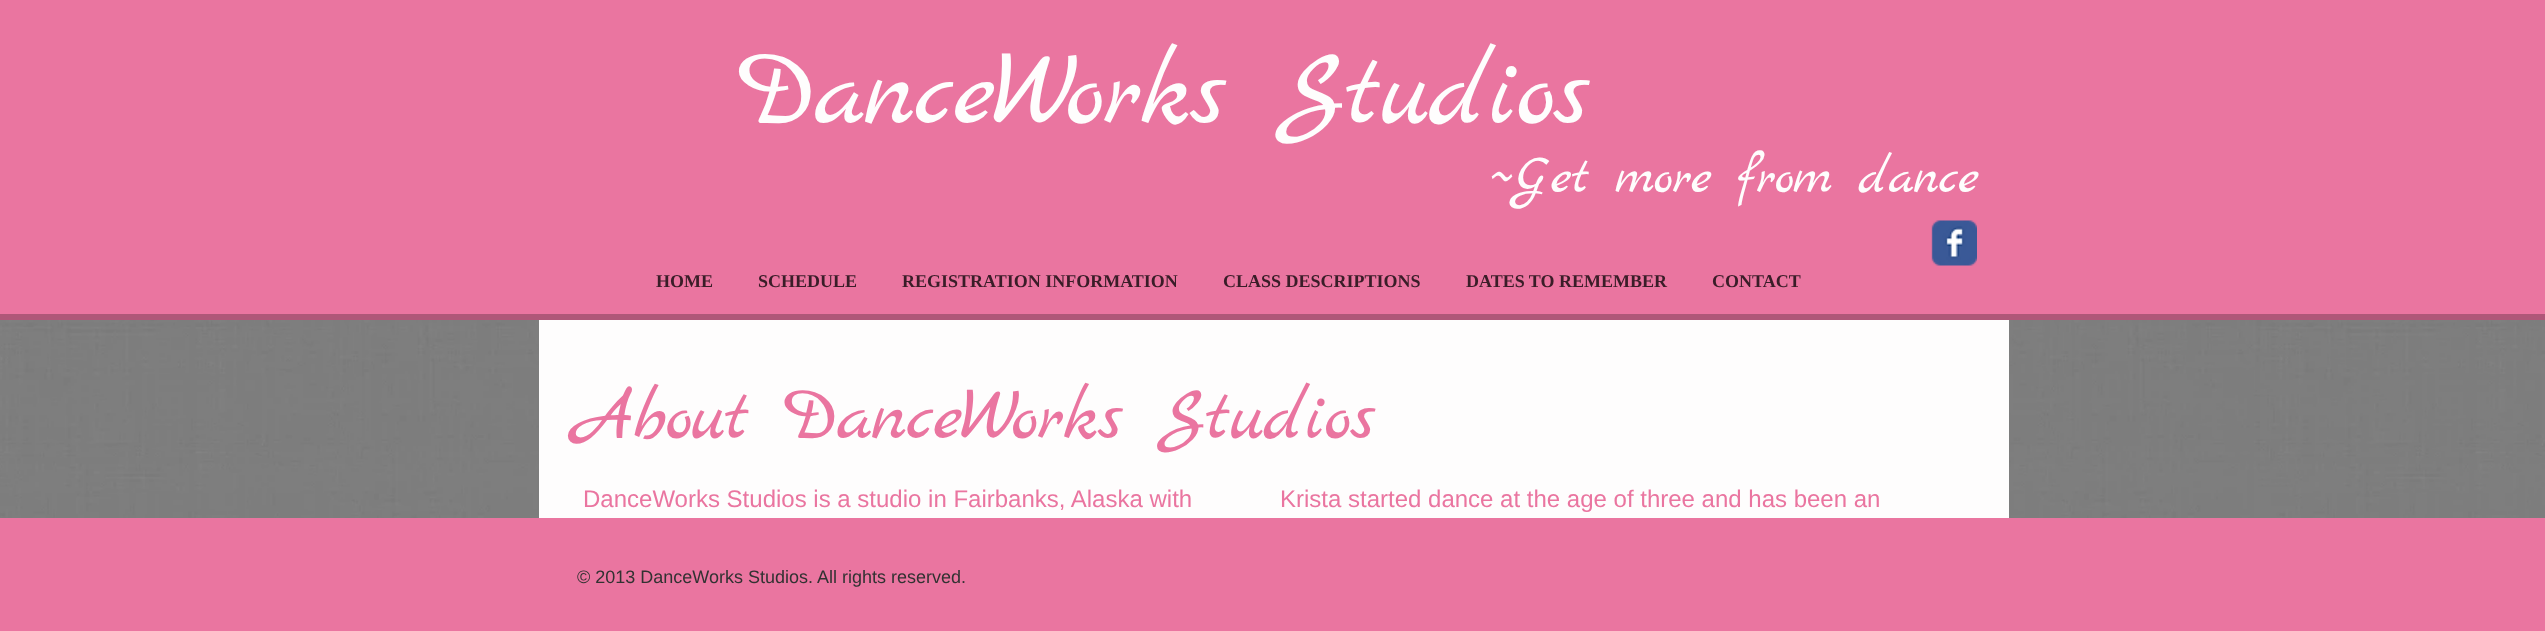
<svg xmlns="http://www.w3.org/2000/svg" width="2545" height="631">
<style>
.a{font:108px Marck Script;fill:#fefdfd}
.b{font:54px Marck Script;fill:#fefdfd}
.c{font:bold 18px Liberation Serif;fill:#3a1d28}
.d{font:75px Marck Script;fill:#ea75a0}
.e{font:24px Liberation Sans;fill:#ea75a0}
.f{font:18px Liberation Sans;fill:#323232}
</style>
<rect width="100%" height="100%" fill="#fff"/>
<path fill="#ea75a0" d="M0 0h2545v314H0z"/>
<path fill="#af5778" d="M0 314h2545v6H0z"/>
<image href="1.png" x="1931" y="220" width="46" height="46"/>
<image href="2.png" x="0" y="320" width="2545" height="198"/>
<path fill="#fefdfd" d="M539 320h1470v198H539z"/>
<path fill="#ea75a0" d="M0 518h2545v113H0z"/>
<text class="a" x="740" y="123">DanceWorks Studios</text>
<text class="b" x="1490" y="192">~Get more from dance</text>
<text class="c" x="656" y="287">HOME</text>
<text class="c" x="758" y="287">SCHEDULE</text>
<text class="c" x="902" y="287">REGISTRATION INFORMATION</text>
<text class="c" x="1223" y="287">CLASS DESCRIPTIONS</text>
<text class="c" x="1466" y="287">DATES TO REMEMBER</text>
<text class="c" x="1712" y="287">CONTACT</text>
<text class="d" x="575" y="438">About DanceWorks Studios</text>
<text class="e" x="583" y="507">DanceWorks Studios is a studio in Fairbanks, Alaska with</text>
<text class="e" x="1280" y="507">Krista started dance at the age of three and has been an</text>
<text class="f" x="577" y="583">© 2013 DanceWorks Studios. All rights reserved.</text>
</svg>
